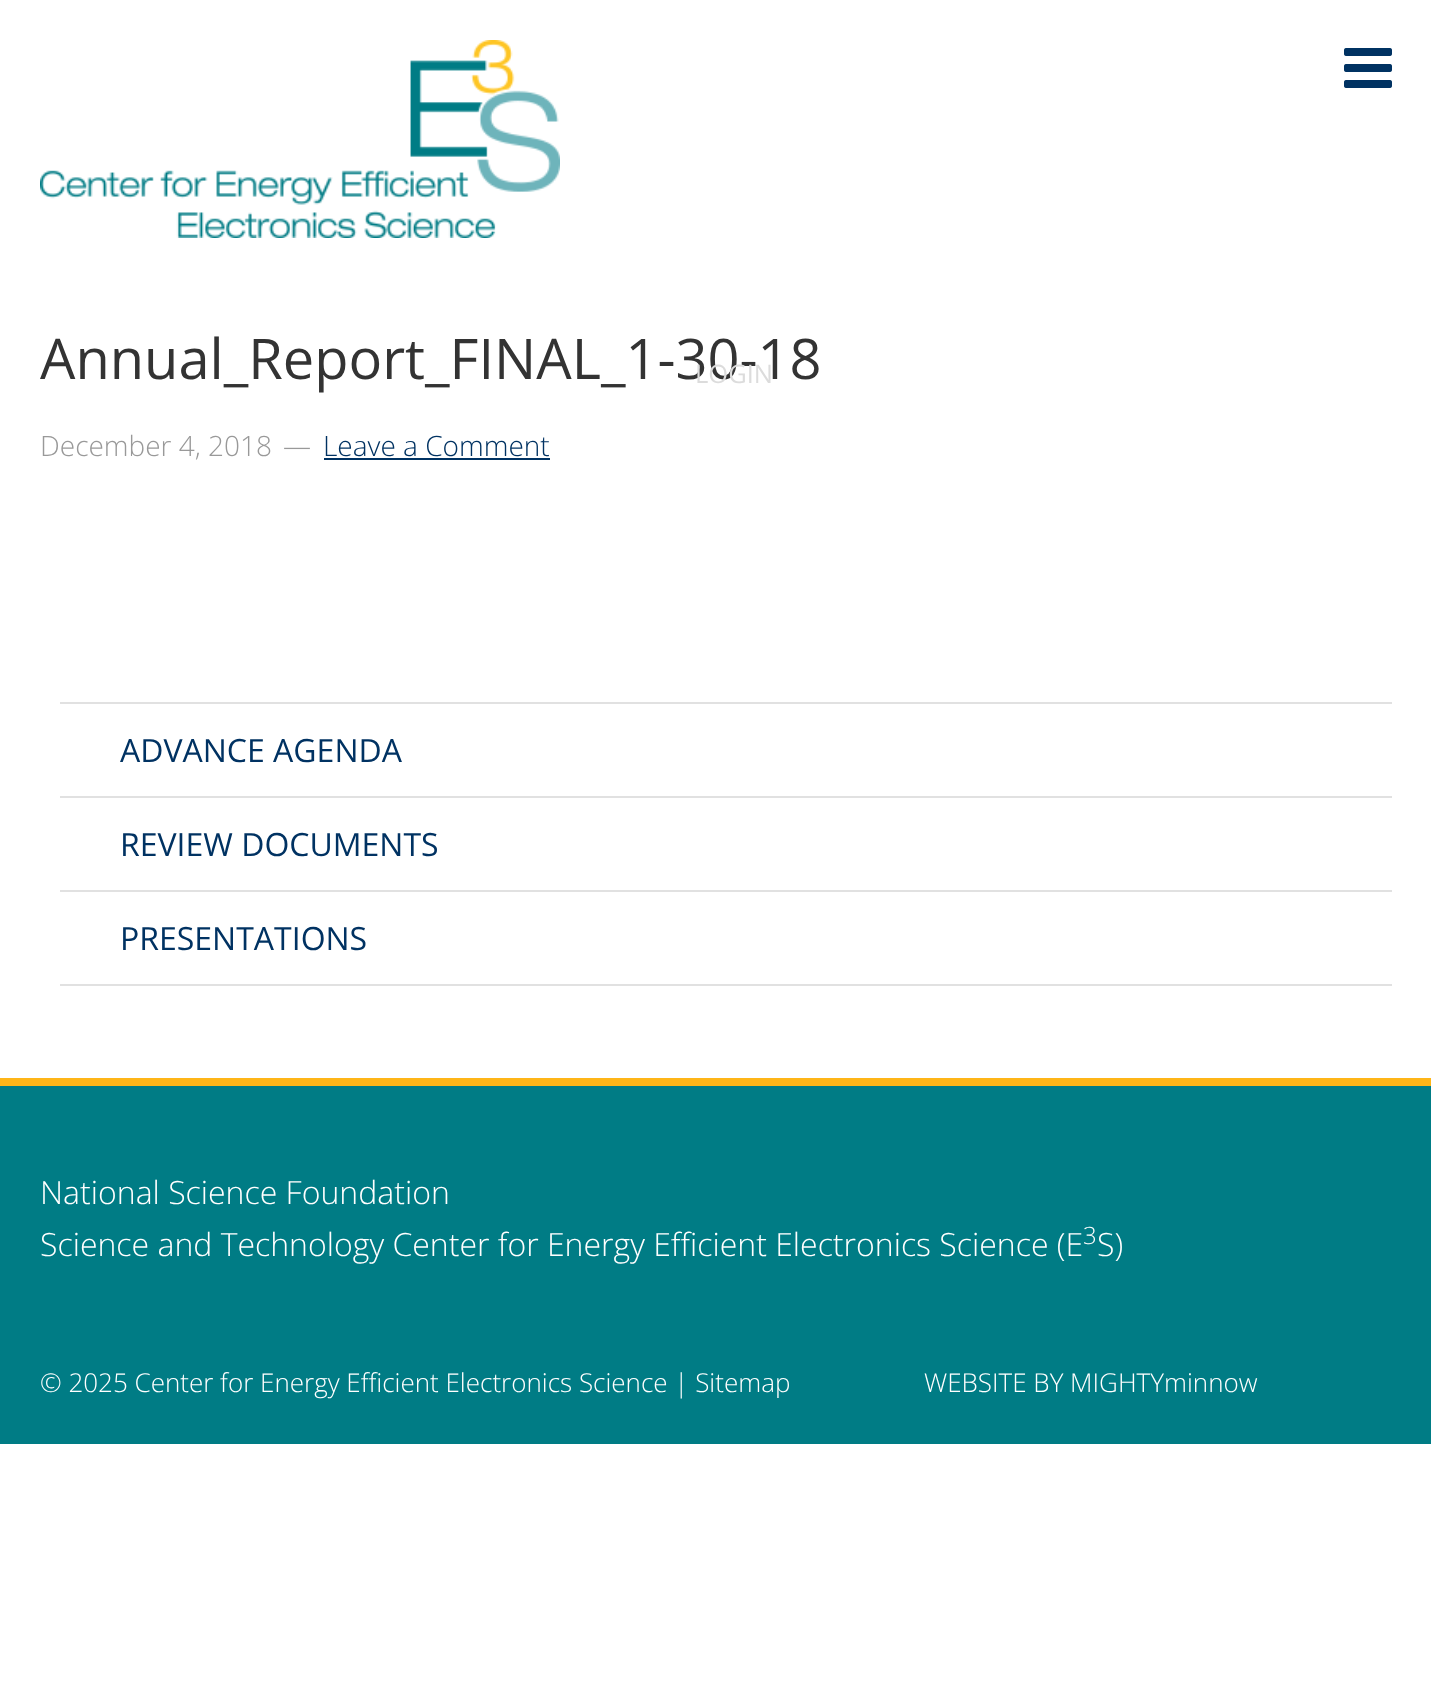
<svg xmlns="http://www.w3.org/2000/svg" width="1431" height="1692">
<style>
.a{font:56px Open Sans;fill:#333}
.b{font:300 28px Open Sans;fill:#999}
.c{font:300 28px Open Sans;fill:#003262}
.d{font:32px Open Sans;fill:#003262}
.e{font:25.5px Open Sans;fill:#dcdcdc}
.f{font:300 32px Open Sans;fill:#fff}
.g{font:300 24px Open Sans;fill:#fff}
.h{font:300 26px Open Sans;fill:#fff}
</style>
<rect width="100%" height="100%" fill="#fff"/>
<path fill="#003262" d="M324 458h226v2H324z"/>
<path fill="#e1e1e1" d="M60 702h1332v2H60z"/>
<path fill="#e1e1e1" d="M60 796h1332v2H60z"/>
<path fill="#e1e1e1" d="M60 890h1332v2H60z"/>
<path fill="#e1e1e1" d="M60 984h1332v2H60z"/>
<image href="1.png" x="40" y="40" width="520" height="198"/>
<image href="2.png" x="1344" y="48" width="48" height="40"/>
<path fill="#feb518" d="M0 1078h1431v8H0z"/>
<path fill="#007c85" d="M0 1086h1431v358H0z"/>
<text class="a" x="40" y="379">Annual_Report_FINAL_1-30-18</text>
<text class="b" x="40" y="456">December 4, 2018</text>
<text class="b" x="283" y="456">—</text>
<text class="c" x="323" y="456">Leave a Comment</text>
<text class="d" x="120" y="762">ADVANCE AGENDA</text>
<text class="d" x="120" y="856">REVIEW DOCUMENTS</text>
<text class="d" x="120" y="950">PRESENTATIONS</text>
<text class="e" x="695" y="383">LOGIN</text>
<text class="f" x="40" y="1204">National Science Foundation</text>
<text class="f" x="40" y="1256">Science and Technology Center for Energy Efficient Electronics Science (E</text>
<text class="g" x="1083" y="1244">3</text>
<text class="f" x="1097" y="1256">S)</text>
<text class="h" x="40" y="1392">© 2025 Center for Energy Efficient Electronics Science | Sitemap</text>
<text class="h" x="924" y="1392">WEBSITE BY MIGHTYminnow</text>
</svg>
